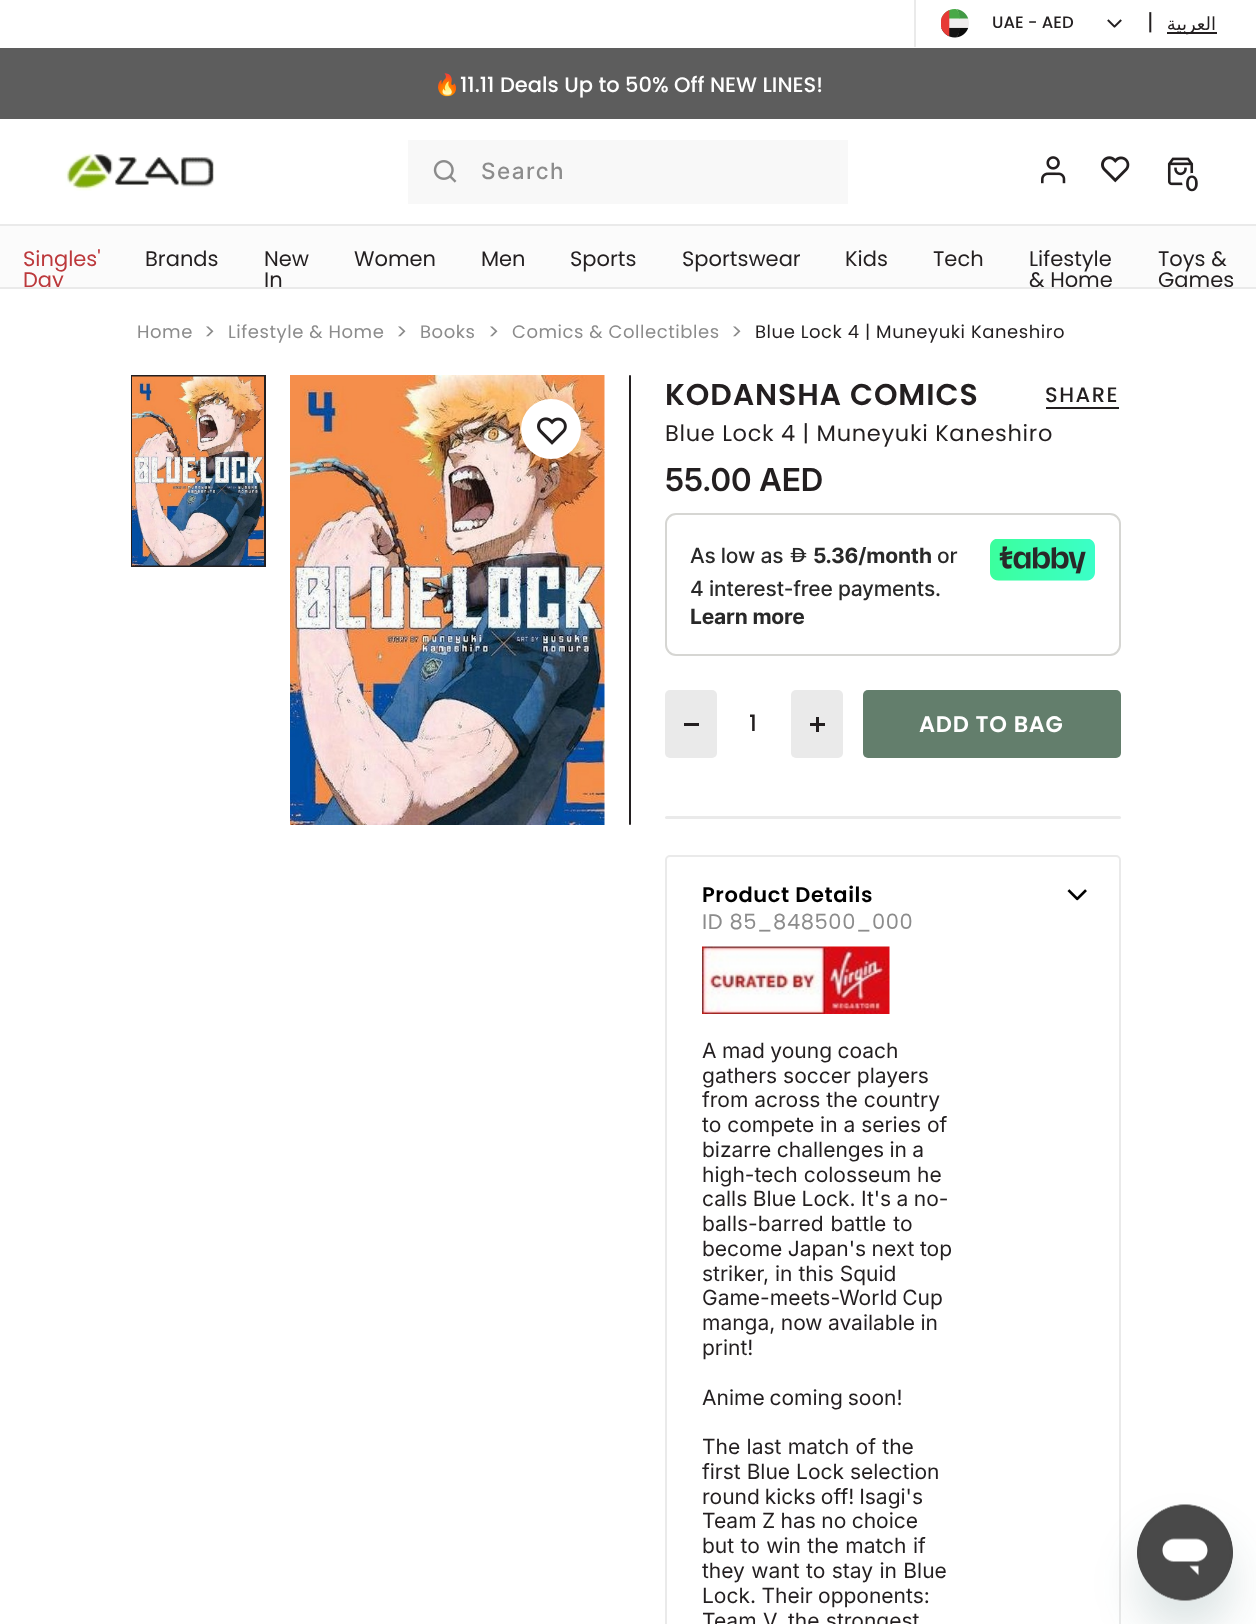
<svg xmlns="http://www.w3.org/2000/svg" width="1256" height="1624">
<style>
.a{font:500 16.5px Poppins;fill:#231f20}
.b{font:22.5px Poppins;fill:#231f20}
.c{font:18px DejaVu Sans;direction:rtl;fill:#231f20}
.d{font:21px Poppins;fill:#bc393c}
.e{font:21px Poppins;fill:#231f20}
.f{font:500 22.5px Inter;letter-spacing:1.5px;fill:#8c8c8c}
.g{font:600 21px 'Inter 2';letter-spacing:1.5px;fill:#231f20}
.h{font:21px Noto Color Emoji;fill:#fff}
.i{font:500 21px Poppins;fill:#fff}
.j{font:18px Poppins;letter-spacing:0.55px;fill:#8c8c8c}
.k{font:21px Poppins;letter-spacing:0.55px;fill:#8c8c8c}
.l{font:18px Poppins;letter-spacing:0.55px;fill:#231f20}
.m{font:600 30px Poppins;letter-spacing:0.9px;fill:#231f20}
.n{font:500 21px Poppins;letter-spacing:1.5px;fill:#231f20}
.o{font:22.5px Poppins;letter-spacing:0.7px;fill:#231f20}
.p{font:600 31.5px Inter;fill:#231f20}
.q{font:500 21px Inter;letter-spacing:-0.2px;fill:#292929}
.r{font:bold 21px Inter;letter-spacing:-0.2px;fill:#292929}
.s{font:500 22.5px Poppins;letter-spacing:1px;fill:#231f20}
.t{font:600 22.5px Poppins;letter-spacing:0.7px;fill:#fff}
.u{font:600 21px Poppins;letter-spacing:0.6px;fill:#000}
.v{font:21px Poppins;letter-spacing:0.6px;fill:#8c8c8c}
.w{font:21px Inter;fill:#231f20}
</style>
<defs>
<clipPath id="clip1"><path d="M0 225h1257v62H0z"/></clipPath>
</defs>
<rect width="100%" height="100%" fill="#fff"/>
<path fill="#fbfbfb" d="M0 226h1256v61H0z"/>
<path fill="#eaeaea" d="M0 224h1256v2H0z"/>
<path fill="#eaeaea" d="M0 287h1256v2H0z"/>
<path fill="#eaeaea" d="M914 0h2v47H914z"/>
<image href="1.png" x="941" y="9" width="28" height="29"/>
<image href="2.png" x="1107" y="19" width="15" height="9"/>
<path fill="#231f20" d="M1167 32h50v2H1167z"/>
<image href="3.png" x="65" y="153" width="150" height="38"/>
<path fill="#f8f8f8" d="M408 140h440v64H408z"/>
<image href="4.png" x="433" y="160" width="24" height="23"/>
<image href="5.png" x="1041" y="156" width="25" height="28"/>
<image href="6.png" x="1101" y="156" width="29" height="27"/>
<image href="7.png" x="1167" y="157" width="27" height="29"/>
<rect fill="#fff" x="1182" y="173" width="21" height="19" rx="9.5"/>
<path fill="#5d5d5d" d="M0 48h1256v71H0z"/>
<path fill="none" stroke="#231f20" stroke-width="2" d="M132 376h133v190H132z"/>
<image href="8.png" x="132" y="376" width="132" height="190"/>
<image href="9.png" x="290" y="375" width="315" height="450"/>
<rect fill="#231f20" x="629" y="375" width="2" height="450" rx="1"/>
<rect fill="#00000012" filter="blur(3px)" x="521" y="402" width="60" height="60" rx="30"/>
<circle fill="#fff" cx="551" cy="429" r="30"/>
<image href="10.png" x="537" y="417" width="30" height="28"/>
<path fill="#231f20" d="M1046 407h73v2H1046z"/>
<rect fill="none" stroke="#d6d6d3" stroke-width="2" x="666" y="514" width="454" height="141" rx="10"/>
<image href="11.png" x="790" y="547" width="17" height="16"/>
<image href="12.png" x="990" y="539" width="105" height="42"/>
<rect fill="#eaeaea" x="665" y="690" width="52" height="68" rx="5"/>
<path fill="#231f20" d="M684 723h15v3H684z"/>
<rect fill="#eaeaea" x="791" y="690" width="52" height="68" rx="5"/>
<path fill="#231f20" d="M816 717h3v15H816z"/>
<path fill="#231f20" d="M810 723h15v3H810z"/>
<rect fill="#637e6c" x="863" y="690" width="258" height="68" rx="5"/>
<rect fill="#eaeaea" x="665" y="816" width="456" height="3" rx="1.5"/>
<rect fill="none" stroke="#eaeaea" stroke-width="2" x="666" y="856" width="454" height="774" rx="4"/>
<image href="13.png" x="1067" y="889" width="20" height="12"/>
<image href="14.png" x="702" y="946" width="188" height="68"/>
<rect fill="#17494d26" filter="blur(22.5px)" x="1137" y="1535" width="96" height="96" rx="48"/>
<image href="15.png" x="1137" y="1504" width="96" height="97"/>
<text class="a" x="992" y="28">UAE - AED</text>
<text class="b" x="1147" y="30">|</text>
<text class="c" x="1216" y="30">العربية</text>
<text class="d" x="23" y="266">Singles'</text>
<g clip-path="url(#clip1)">
<text class="d" x="23" y="287">Day</text>
</g>
<text class="e" x="145" y="266">Brands</text>
<text class="e" x="264" y="266">New</text>
<text class="e" x="264" y="287">In</text>
<text class="e" x="354" y="266">Women</text>
<text class="e" x="481" y="266">Men</text>
<text class="e" x="570" y="266">Sports</text>
<text class="e" x="682" y="266">Sportswear</text>
<text class="e" x="845" y="266">Kids</text>
<text class="e" x="933" y="266">Tech</text>
<text class="e" x="1029" y="266">Lifestyle</text>
<g clip-path="url(#clip1)">
<text class="e" x="1029" y="287">&amp; Home</text>
</g>
<text class="e" x="1158" y="266">Toys &amp;</text>
<g clip-path="url(#clip1)">
<text class="e" x="1158" y="287">Games</text>
</g>
<text class="f" x="481" y="179">Search</text>
<text class="g" x="1185" y="191">0</text>
<text class="h" x="434" y="92">🔥</text>
<text class="i" x="460" y="92">11.11 Deals Up to 50% Off NEW LINES!</text>
<text class="j" x="137" y="338">Home</text>
<text class="k" x="204" y="339">&gt;</text>
<text class="j" x="228" y="338">Lifestyle &amp; Home</text>
<text class="k" x="396" y="339">&gt;</text>
<text class="j" x="420" y="338">Books</text>
<text class="k" x="488" y="339">&gt;</text>
<text class="j" x="512" y="338">Comics &amp; Collectibles</text>
<text class="k" x="731" y="339">&gt;</text>
<text class="l" x="755" y="338">Blue Lock 4 | Muneyuki Kaneshiro</text>
<text class="m" x="665" y="405">KODANSHA COMICS</text>
<text class="n" x="1045" y="402">SHARE</text>
<text class="o" x="665" y="441">Blue Lock 4 | Muneyuki Kaneshiro</text>
<text class="p" x="665" y="491">55.00 AED</text>
<text class="q" x="690" y="563">As low as</text>
<text class="r" x="813" y="563">5.36/month</text>
<text class="q" x="937" y="563">or</text>
<text class="q" x="690" y="596">4 interest-free payments.</text>
<text class="r" x="690" y="624">Learn more</text>
<text class="s" x="749" y="731">1</text>
<text class="t" x="919" y="732">ADD TO BAG</text>
<text class="u" x="702" y="902">Product Details</text>
<text class="v" x="702" y="929">ID 85_848500_000</text>
<text class="w" x="702" y="1058" word-spacing="-0.5">A mad young coach</text>
<text class="w" x="702" y="1083">gathers soccer players</text>
<text class="w" x="702" y="1107">from across the country</text>
<text class="w" x="702" y="1132">to compete in a series of</text>
<text class="w" x="702" y="1157" word-spacing="-0.5">bizarre challenges in a</text>
<text class="w" x="702" y="1182">high-tech colosseum he</text>
<text class="w" x="702" y="1206" word-spacing="-0.5">calls Blue Lock. It's a no-</text>
<text class="w" x="702" y="1231" word-spacing="1">balls-barred battle to</text>
<text class="w" x="702" y="1256" word-spacing="-0.5">become Japan's next top</text>
<text class="w" x="702" y="1281">striker, in this Squid</text>
<text class="w" x="702" y="1305" word-spacing="-1">Game-meets-World Cup</text>
<text class="w" x="702" y="1330" word-spacing="-0.5">manga, now available in</text>
<text class="w" x="702" y="1355">print!</text>
<text class="w" x="702" y="1405" word-spacing="-1">Anime coming soon!</text>
<text class="w" x="702" y="1454" word-spacing="0.5">The last match of the</text>
<text class="w" x="702" y="1479">first Blue Lock selection</text>
<text class="w" x="702" y="1504" word-spacing="-1">round kicks off! Isagi's</text>
<text class="w" x="702" y="1528" word-spacing="-0.5">Team Z has no choice</text>
<text class="w" x="702" y="1553" word-spacing="0.5">but to win the match if</text>
<text class="w" x="702" y="1578" word-spacing="0.5">they want to stay in Blue</text>
<text class="w" x="702" y="1603" word-spacing="-0.5">Lock. Their opponents:</text>
<text class="w" x="702" y="1628" word-spacing="0.5">Team V, the strongest</text>
</svg>
